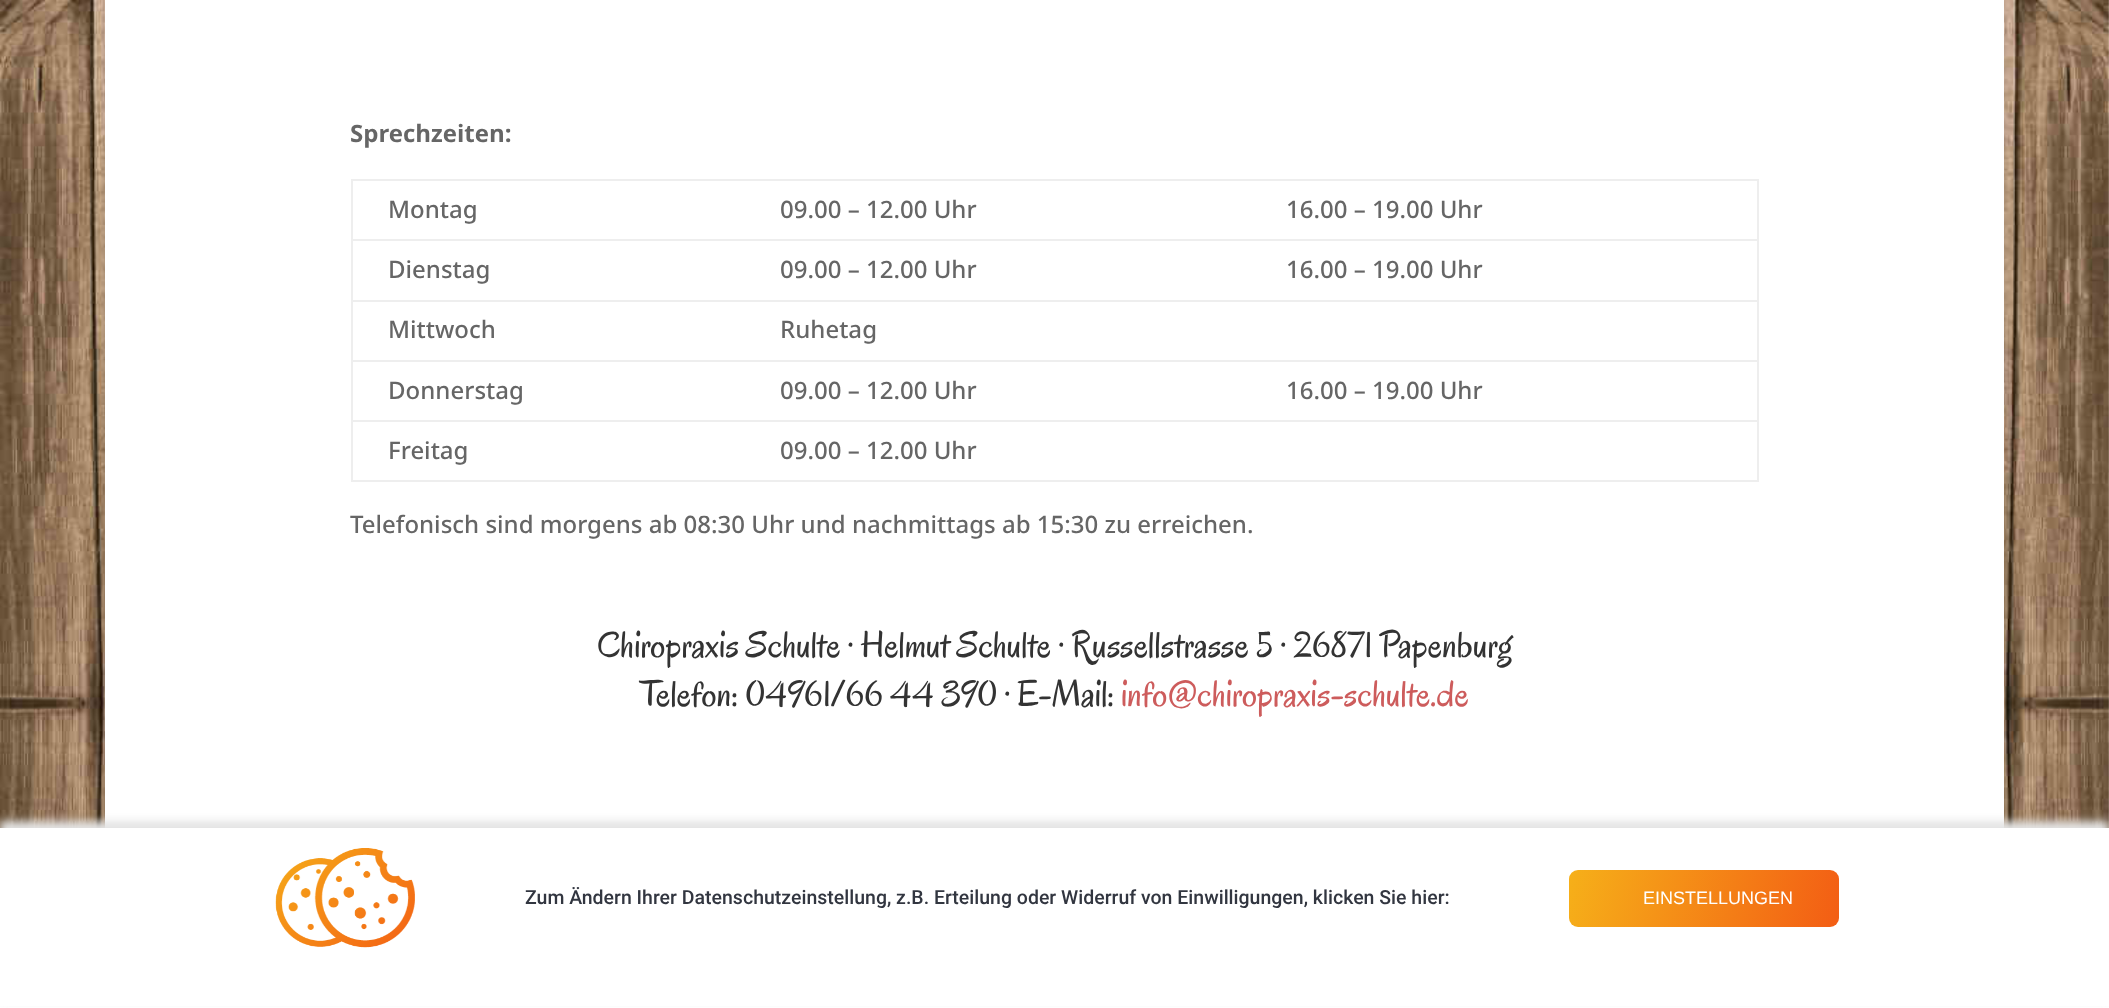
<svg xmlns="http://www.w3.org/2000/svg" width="2109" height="1008">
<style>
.a{font:bold 24px Noto Sans;fill:#666}
.b{font:500 24px Noto Sans;fill:#666}
.c{font:37.5px Oregano;fill:#333}
.d{font:37.5px Oregano;fill:#cd5c5c}
.e{font:500 19.5px Roboto;fill:#323640}
.f{font:18px Liberation Sans;fill:#fff}
</style>
<defs>
<linearGradient id="g1" gradientUnits="userSpaceOnUse" x1="1570" y1="865" x2="1838" y2="932"><stop offset="0" stop-color="#f6b019"/><stop offset="1" stop-color="#f35d14"/></linearGradient>
</defs>
<rect width="100%" height="100%" fill="#fff"/>
<image href="1.png" x="0" y="0" width="2109" height="828"/>
<path fill="#00000033" filter="blur(7.5px)" d="M105 0h1899v962H105z"/>
<path fill="#fff" d="M105 0h1899v828H105z"/>
<path fill="#eee" d="M351 179h1407v2H351z"/>
<path fill="#eee" d="M1757 179h2v303H1757z"/>
<path fill="#eee" d="M351 480h1407v2H351z"/>
<path fill="#eee" d="M351 179h2v303H351z"/>
<path fill="#eee" d="M351 239h1407v2H351z"/>
<path fill="#eee" d="M351 300h1407v2H351z"/>
<path fill="#eee" d="M351 360h1407v2H351z"/>
<path fill="#eee" d="M351 420h1407v2H351z"/>
<path fill="#e4e4e4" filter="blur(4px)" d="M0 821h2109v180H0z"/>
<path fill="#fff" d="M0 828h2109v178H0z"/>
<image href="2.png" x="275" y="848" width="140" height="100"/>
<rect fill="url(#g1)" x="1569" y="870" width="270" height="57" rx="9"/>
<text class="a" x="350" y="142">Sprechzeiten:</text>
<text class="b" x="388" y="218">Montag</text>
<text class="b" x="780" y="218">09.00 – 12.00 Uhr</text>
<text class="b" x="1286" y="218">16.00 – 19.00 Uhr</text>
<text class="b" x="388" y="278">Dienstag</text>
<text class="b" x="780" y="278">09.00 – 12.00 Uhr</text>
<text class="b" x="1286" y="278">16.00 – 19.00 Uhr</text>
<text class="b" x="388" y="338">Mittwoch</text>
<text class="b" x="780" y="338">Ruhetag</text>
<text class="b" x="388" y="399">Donnerstag</text>
<text class="b" x="780" y="399">09.00 – 12.00 Uhr</text>
<text class="b" x="1286" y="399">16.00 – 19.00 Uhr</text>
<text class="b" x="388" y="459">Freitag</text>
<text class="b" x="780" y="459">09.00 – 12.00 Uhr</text>
<text class="b" x="350" y="533">Telefonisch sind morgens ab 08:30 Uhr und nachmittags ab 15:30 zu erreichen.</text>
<text class="c" x="597" y="657">Chiropraxis Schulte · Helmut Schulte · Russellstrasse 5 · 26871 Papenburg</text>
<text class="c" x="640" y="706">Telefon: 04961/66 44 390 · E-Mail:</text>
<text class="d" x="1121" y="706">info@chiropraxis-schulte.de</text>
<text class="e" x="525" y="904">Zum Ändern Ihrer Datenschutzeinstellung, z.B. Erteilung oder Widerruf von Einwilligungen, klicken Sie hier:</text>
<text class="f" x="1643" y="904">EINSTELLUNGEN</text>
</svg>
